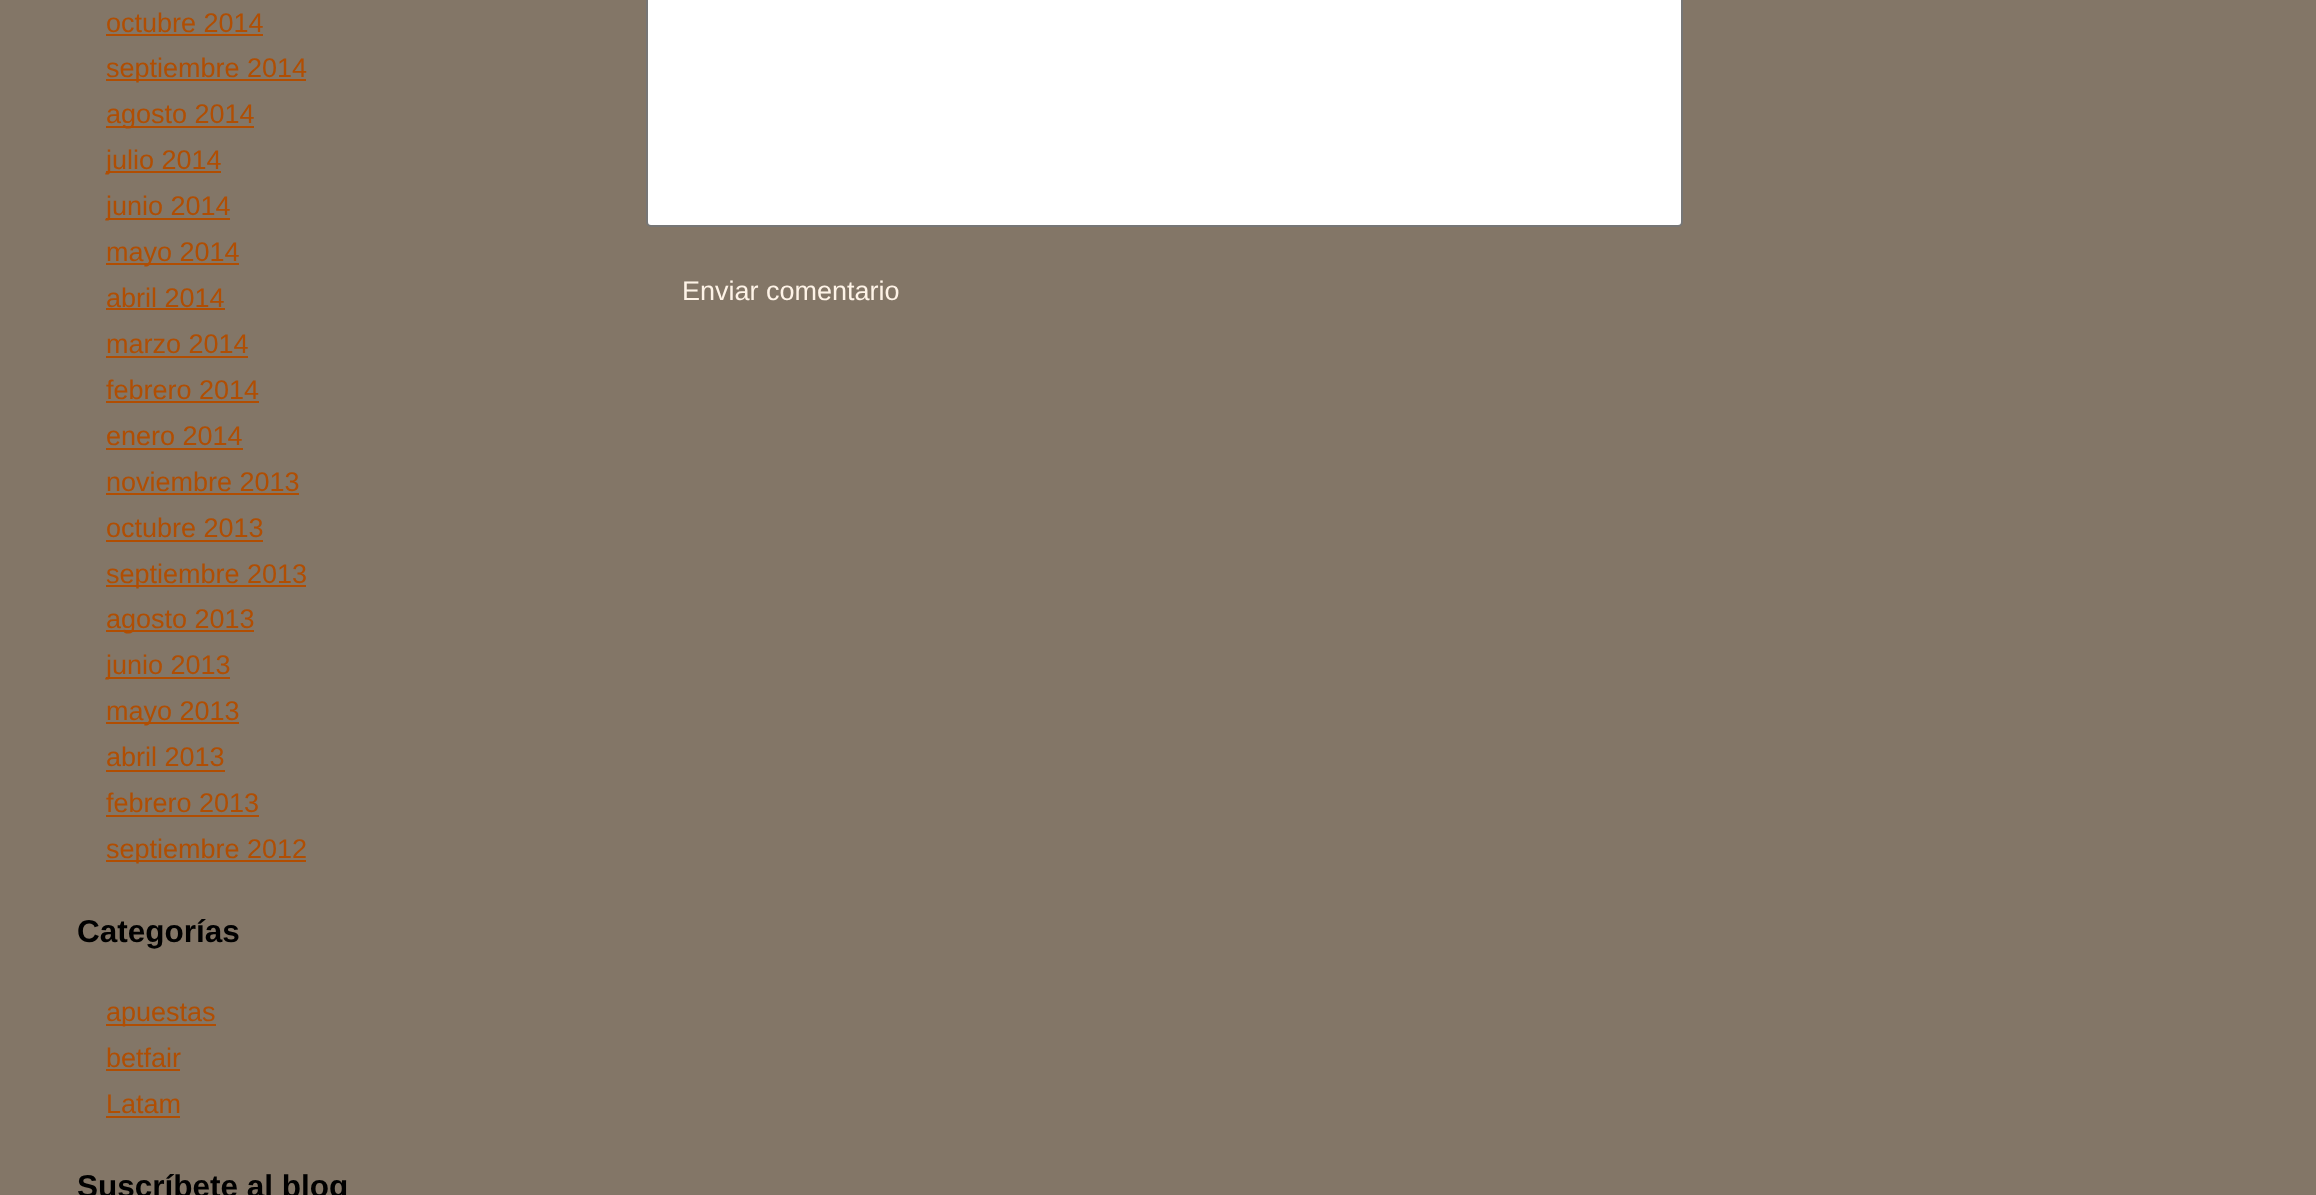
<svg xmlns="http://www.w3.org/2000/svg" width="2316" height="1195">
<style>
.a{font:27px Liberation Sans;fill:#b14e02}
.b{font:bold 31.5px Liberation Sans;fill:#000}
.c{font:27px Liberation Sans;fill:#fef3e7}
</style>
<rect width="100%" height="100%" fill="#837667"/>
<path fill="#b14e02" d="M106 34h157v2H106z"/>
<path fill="#b14e02" d="M106 79h200v2H106z"/>
<path fill="#b14e02" d="M106 126h148v2H106z"/>
<path fill="#b14e02" d="M106 171h115v2H106z"/>
<path fill="#b14e02" d="M106 218h124v2H106z"/>
<path fill="#b14e02" d="M106 263h133v2H106z"/>
<path fill="#b14e02" d="M106 308h119v2H106z"/>
<path fill="#b14e02" d="M106 356h142v2H106z"/>
<path fill="#b14e02" d="M106 401h153v2H106z"/>
<path fill="#b14e02" d="M106 448h137v2H106z"/>
<path fill="#b14e02" d="M106 493h193v2H106z"/>
<path fill="#b14e02" d="M106 540h157v2H106z"/>
<path fill="#b14e02" d="M106 585h200v2H106z"/>
<path fill="#b14e02" d="M106 630h148v2H106z"/>
<path fill="#b14e02" d="M106 677h124v2H106z"/>
<path fill="#b14e02" d="M106 722h133v2H106z"/>
<path fill="#b14e02" d="M106 770h119v2H106z"/>
<path fill="#b14e02" d="M106 815h153v2H106z"/>
<path fill="#b14e02" d="M106 860h200v2H106z"/>
<path fill="#b14e02" d="M106 1024h110v2H106z"/>
<path fill="#b14e02" d="M106 1069h74v2H106z"/>
<path fill="#b14e02" d="M106 1116h74v2H106z"/>
<rect fill="#fff" stroke="#767676" stroke-width="2" x="647" y="-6" width="1035" height="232" rx="4"/>
<text class="a" x="106" y="32">octubre 2014</text>
<text class="a" x="106" y="77">septiembre 2014</text>
<text class="a" x="106" y="123">agosto 2014</text>
<text class="a" x="106" y="169">julio 2014</text>
<text class="a" x="106" y="215">junio 2014</text>
<text class="a" x="106" y="261">mayo 2014</text>
<text class="a" x="106" y="307">abril 2014</text>
<text class="a" x="106" y="353">marzo 2014</text>
<text class="a" x="106" y="399">febrero 2014</text>
<text class="a" x="106" y="445">enero 2014</text>
<text class="a" x="106" y="491">noviembre 2013</text>
<text class="a" x="106" y="537">octubre 2013</text>
<text class="a" x="106" y="583">septiembre 2013</text>
<text class="a" x="106" y="628">agosto 2013</text>
<text class="a" x="106" y="674">junio 2013</text>
<text class="a" x="106" y="720">mayo 2013</text>
<text class="a" x="106" y="766">abril 2013</text>
<text class="a" x="106" y="812">febrero 2013</text>
<text class="a" x="106" y="858">septiembre 2012</text>
<text class="b" x="77" y="942">Categorías</text>
<text class="a" x="106" y="1021">apuestas</text>
<text class="a" x="106" y="1067">betfair</text>
<text class="a" x="106" y="1113">Latam</text>
<text class="b" x="77" y="1197">Suscríbete al blog</text>
<text class="c" x="682" y="300">Enviar comentario</text>
</svg>
